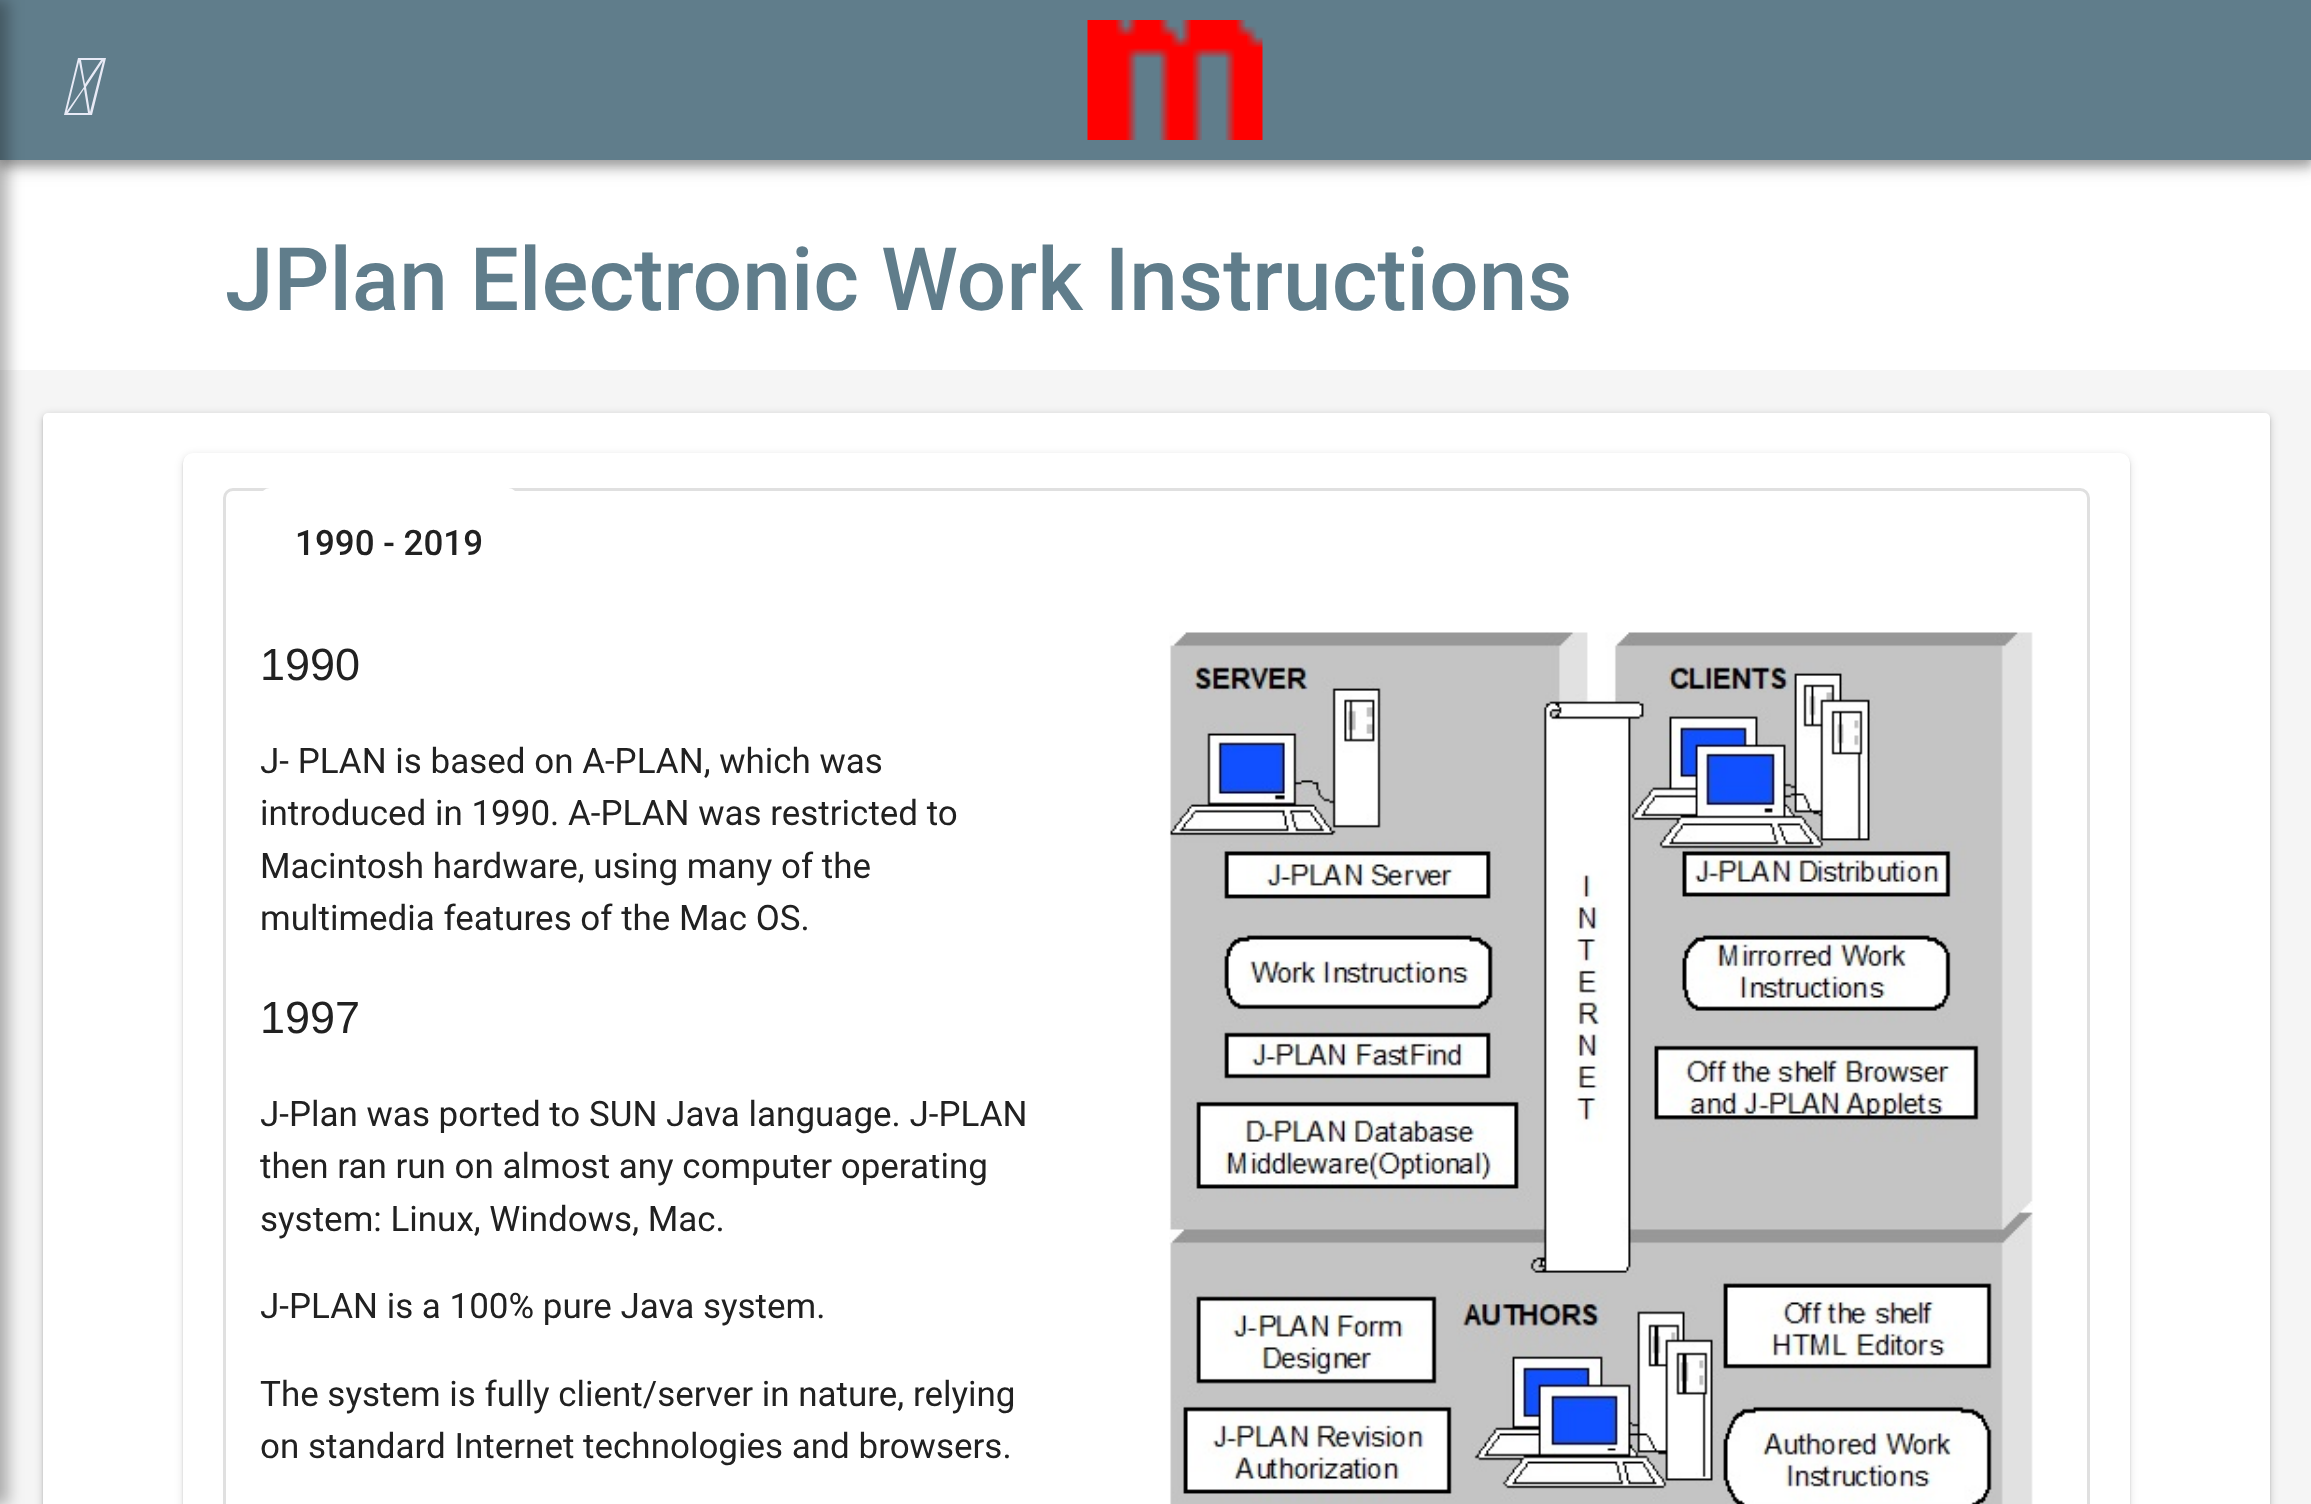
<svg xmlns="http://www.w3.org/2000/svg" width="2311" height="1504">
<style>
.a{font:500 87.5px Roboto;fill:#607d8b}
.b{font:500 35px Roboto;fill:#212121}
.c{font:45px Liberation Sans;fill:#212121}
.d{font:35px Roboto;fill:#212121}
</style>
<rect width="100%" height="100%" fill="#f5f5f5"/>
<path fill="#fff" d="M0 160h2311v210H0z"/>
<path fill="#00000024" filter="blur(6px)" d="M0 10h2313v160H0z"/>
<path fill="#0000001f" filter="blur(12.5px)" d="M0 3h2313v160H0z"/>
<path fill="#00000033" filter="blur(5px)" d="M0 5h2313v160H0z"/>
<path fill="#607d8b" d="M0 0h2311v160H0z"/>
<path fill="#0000004d" filter="blur(7.5px)" d="M-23 0h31v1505H-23z"/>
<path fill="#e8eaf6" d="M92 115h-28l14-57h28zm-2-3l13-51l-17 26zm-11-50l-12 49l17-24zm-11 51h20l-4-24zm17-29l16-24h-20z"/>
<image href="1.png" x="1087" y="20" width="176" height="120"/>
<rect fill="#00000024" filter="blur(1px)" x="43" y="415" width="2227" height="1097" rx="5"/>
<rect fill="#00000033" filter="blur(4px)" x="43" y="415" width="2227" height="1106" rx="5"/>
<rect fill="#fff" x="43" y="413" width="2227" height="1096" rx="5"/>
<rect fill="#0000001f" filter="blur(4px)" x="183" y="455" width="1947" height="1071" rx="10"/>
<rect fill="#00000024" filter="blur(1px)" x="183" y="455" width="1947" height="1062" rx="10"/>
<rect fill="#fff" x="183" y="453" width="1947" height="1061" rx="10"/>
<rect fill="none" stroke="#e0e0e0" stroke-width="3" x="224.5" y="489.5" width="1864" height="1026" rx="8.5"/>
<rect fill="#fff" x="260" y="488" width="258" height="110" rx="10"/>
<image href="2.png" x="1169" y="632" width="864" height="872"/>
<text class="a" x="225" y="310">JPlan Electronic Work Instructions</text>
<text class="b" x="295" y="555">1990 - 2019</text>
<text class="c" x="260" y="680">1990</text>
<text class="d" x="260" y="773">J- PLAN is based on A-PLAN, which was</text>
<text class="d" x="260" y="825">introduced in 1990. A-PLAN was restricted to</text>
<text class="d" x="260" y="878">Macintosh hardware, using many of the</text>
<text class="d" x="260" y="930">multimedia features of the Mac OS.</text>
<text class="c" x="260" y="1033">1997</text>
<text class="d" x="260" y="1126">J-Plan was ported to SUN Java language. J-PLAN</text>
<text class="d" x="260" y="1178">then ran run on almost any computer operating</text>
<text class="d" x="260" y="1231">system: Linux, Windows, Mac.</text>
<text class="d" x="260" y="1318">J-PLAN is a 100% pure Java system.</text>
<text class="d" x="260" y="1406">The system is fully client/server in nature, relying</text>
<text class="d" x="260" y="1458">on standard Internet technologies and browsers.</text>
</svg>
